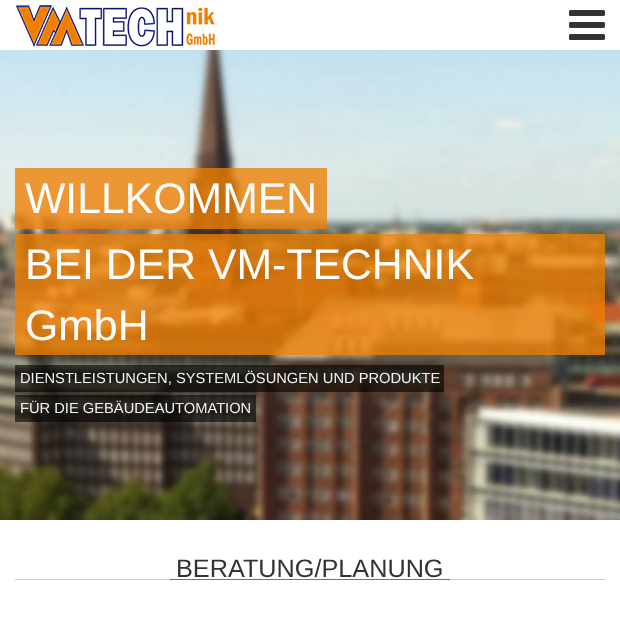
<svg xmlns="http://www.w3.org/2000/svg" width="620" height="620">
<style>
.a{font:42.75px Liberation Sans;fill:#fff}
.b{font:14.7px Liberation Sans;fill:#f3f3f3}
.c{font:25.25px Liberation Sans;fill:#333}
</style>
<rect width="100%" height="100%" fill="#fff"/>
<path fill="#ccc" d="M15 579h590v1H15z"/>
<image href="1.png" x="0" y="50" width="620" height="470"/>
<image href="2.png" x="16" y="5" width="199" height="42"/>
<image href="3.png" x="569" y="10" width="36" height="30"/>
<path fill="#ee7f01c7" d="M15 168h312v61H15z"/>
<path fill="#ee7f01c7" d="M15 234h590v121H15z"/>
<path fill="#00000099" d="M15 365h429v27H15z"/>
<path fill="#00000099" d="M15 395h241v27H15z"/>
<path fill="#be5e01" d="M170 579h280v1H170z"/>
<text class="a" x="25" y="213">WILLKOMMEN</text>
<text class="a" x="25" y="279">BEI DER VM-TECHNIK</text>
<text class="a" x="25" y="340">GmbH</text>
<text class="b" x="20" y="383">DIENSTLEISTUNGEN, SYSTEMLÖSUNGEN UND PRODUKTE</text>
<text class="b" x="20" y="413">FÜR DIE GEBÄUDEAUTOMATION</text>
<text class="c" x="176" y="577">BERATUNG/PLANUNG</text>
</svg>
